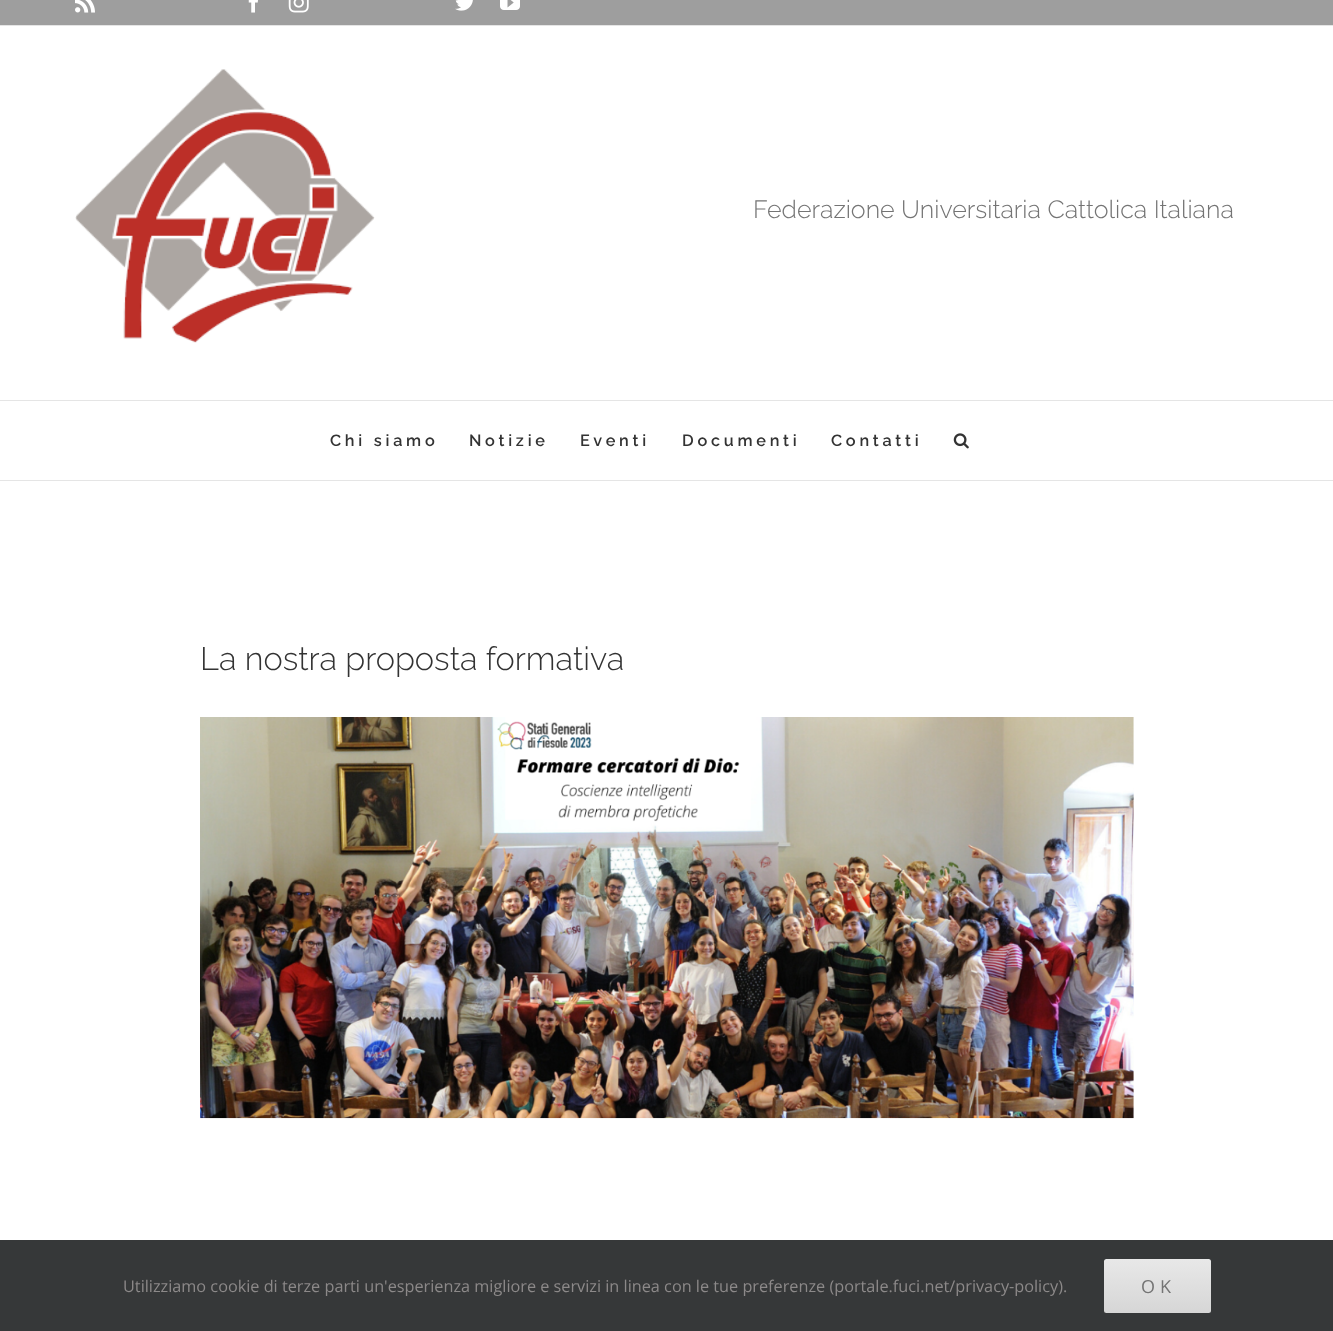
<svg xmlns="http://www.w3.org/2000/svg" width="1333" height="1331">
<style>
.a{font:300 25px Raleway;fill:#747474}
.b{font:600 16.25px Raleway;letter-spacing:3.75px;fill:#333}
.c{font:300 32.5px Raleway;fill:#333}
.d{font:16.25px Open Sans;fill:#8c8989}
.e{font:18px Open Sans;letter-spacing:5px;fill:#747474}
</style>
<defs>
<linearGradient id="g1" gradientUnits="userSpaceOnUse" x1="1158" y1="1313" x2="1158" y2="1259"><stop offset="0" stop-color="#d6d6d6"/><stop offset="1" stop-color="#e8e8e8"/></linearGradient>
</defs>
<rect width="100%" height="100%" fill="#fff"/>
<path fill="#9e9e9e" d="M0 0h1333v25H0z"/>
<path fill="#e5e5e5" d="M0 25h1333v1H0z"/>
<image href="1.png" x="75" y="0" width="20" height="13"/>
<image href="2.png" x="248" y="0" width="10" height="13"/>
<image href="3.png" x="288" y="0" width="21" height="13"/>
<image href="4.png" x="455" y="0" width="18" height="11"/>
<image href="5.png" x="500" y="0" width="20" height="10"/>
<path fill="#e5e5e5" d="M0 400h1333v1H0z"/>
<image href="6.png" x="75" y="69" width="300" height="274"/>
<path fill="#e5e5e5" d="M0 480h1333v1H0z"/>
<image href="7.png" x="953" y="433" width="16" height="16"/>
<image href="8.png" x="200" y="717" width="934" height="402"/>
<path fill="#363839" d="M0 1240h1333v91H0z"/>
<rect fill="url(#g1)" x="1104" y="1259" width="107" height="54" rx="2.5"/>
<text class="a" x="753" y="218">Federazione Universitaria Cattolica Italiana</text>
<text class="b" x="330" y="446">Chi siamo</text>
<text class="b" x="469" y="446">Notizie</text>
<text class="b" x="580" y="446">Eventi</text>
<text class="b" x="682" y="446">Documenti</text>
<text class="b" x="831" y="446">Contatti</text>
<text class="c" x="200" y="670">La nostra proposta formativa</text>
<text class="d" x="123" y="1292">Utilizziamo cookie di terze parti un'esperienza migliore e servizi in linea con le tue preferenze (portale.fuci.net/privacy-policy).</text>
<text class="e" x="1141" y="1293">OK</text>
</svg>
